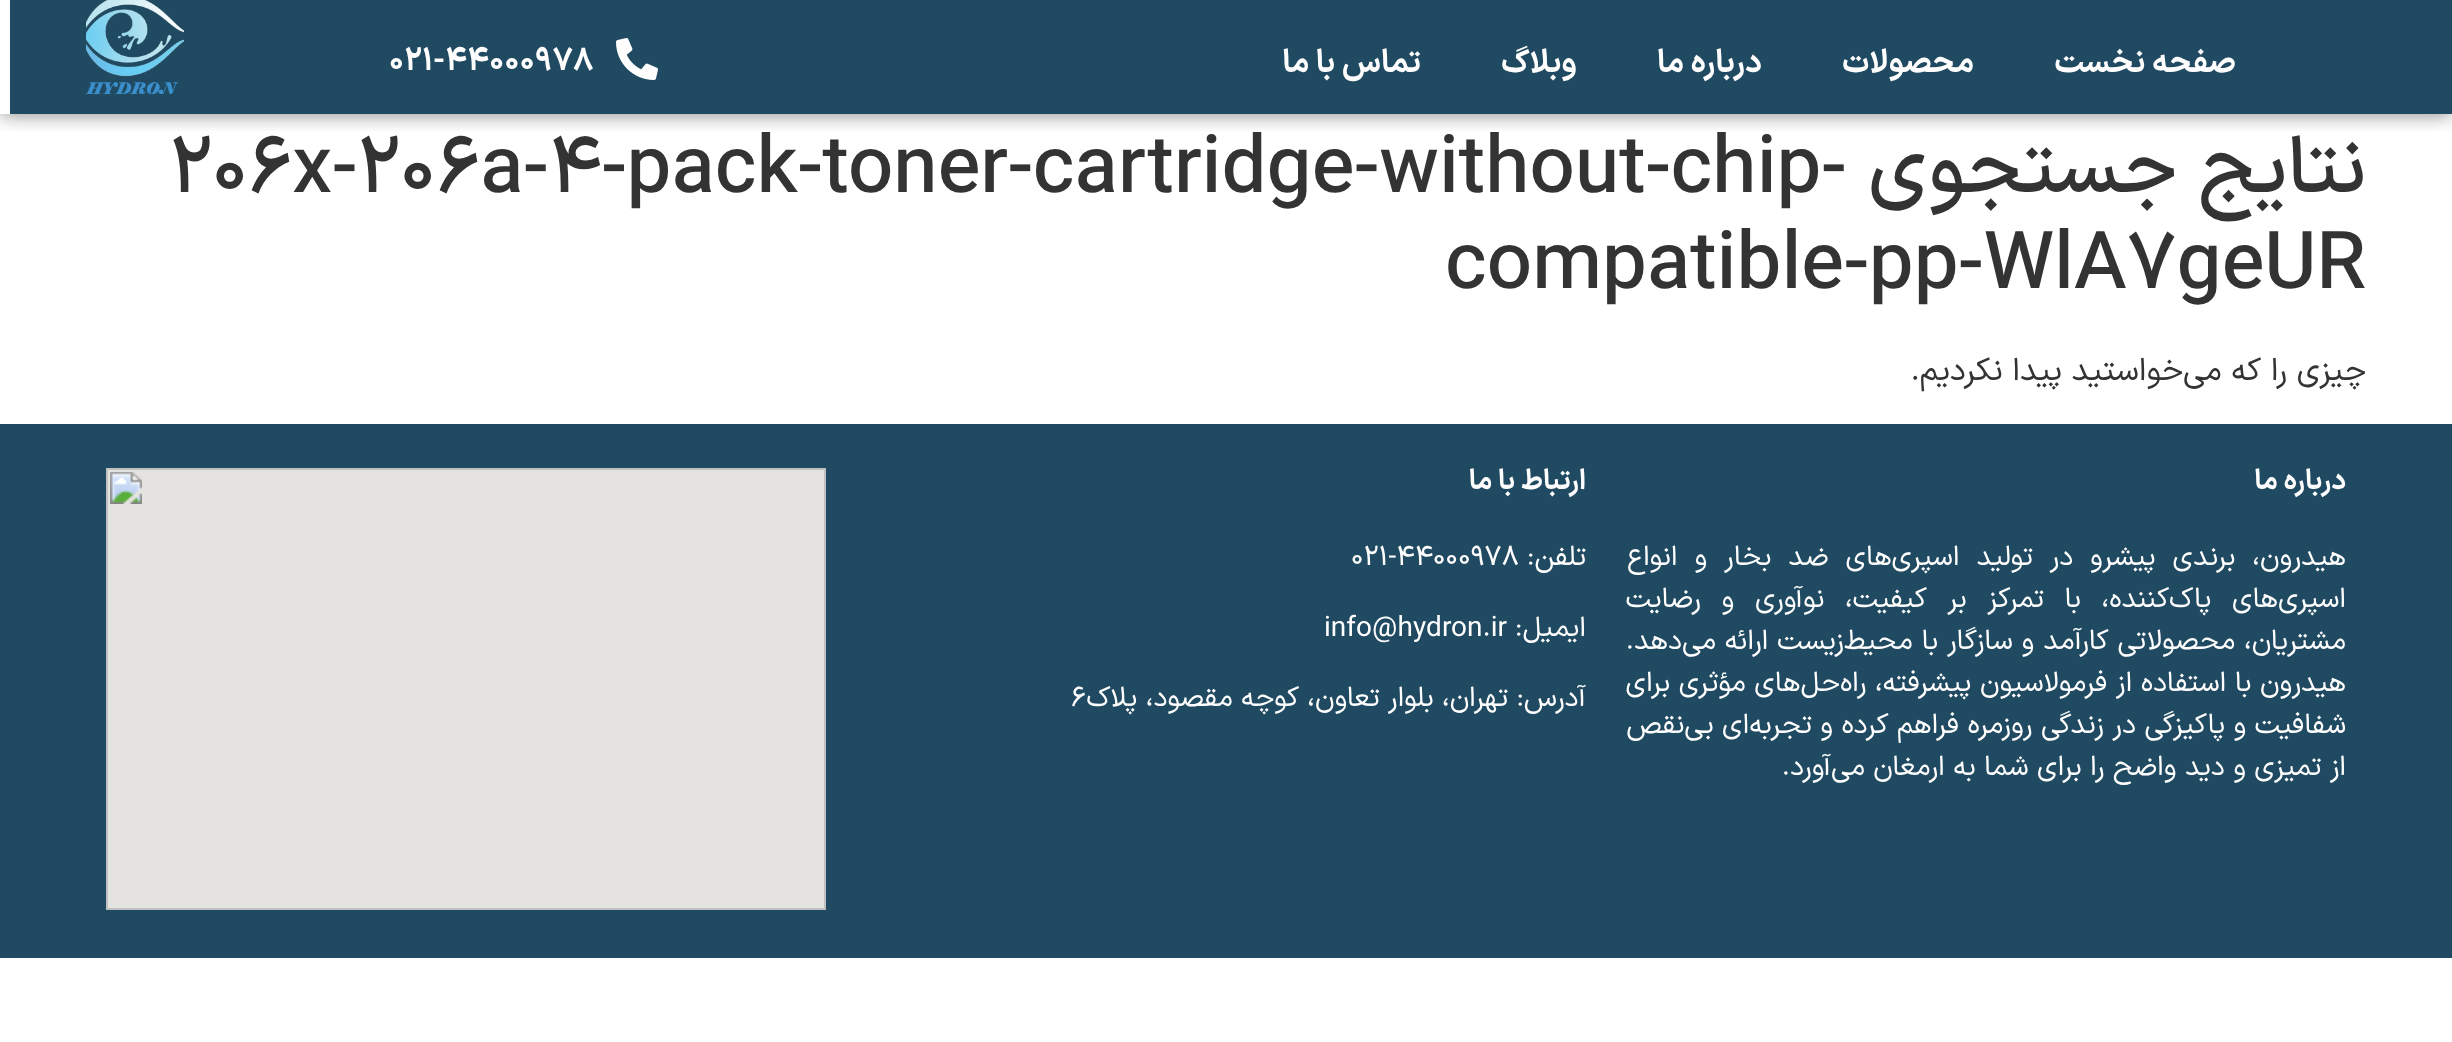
<svg xmlns="http://www.w3.org/2000/svg" width="2452" height="1042">
<style>
.a{font:bold 32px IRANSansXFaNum;direction:rtl;fill:#fffefe}
.b{font:bold 32px IRANSansXFaNum;fill:#fffefe}
.c{font:500 80px IRANSansXFaNum;direction:rtl;fill:#333}
.d{font:500 80px IRANSansXFaNum;fill:#333}
.e{font:32px IRANSansXFaNum;direction:rtl;fill:#333}
.f{font:bold 28px IRANSansXFaNum;direction:rtl;fill:#fffefe}
.g{font:28px IRANSansXFaNum;direction:rtl;fill:#fffefe}
.h{font:28px IRANSansXFaNum;fill:#fffefe}
</style>
<defs>
<clipPath id="clip1"><path d="M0 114h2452v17H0z"/></clipPath>
</defs>
<rect width="100%" height="100%" fill="#fff"/>
<g clip-path="url(#clip1)">
<path fill="#00000080" filter="blur(10px)" d="M0 -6h2452v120H0z"/>
</g>
<path fill="#204a61" d="M10 0h2442v114H10z"/>
<image href="1.png" x="616" y="38" width="42" height="42"/>
<image href="2.png" x="86" y="0" width="98" height="94"/>
<path fill="#204a61" d="M0 424h2452v534H0z"/>
<image href="3.png" x="106" y="468" width="720" height="442"/>
<text class="a" x="2236" y="72">صفحه نخست</text>
<text class="a" x="1974" y="72">محصولات</text>
<text class="a" x="1762" y="72">درباره ما</text>
<text class="a" x="1577" y="72">وبلاگ</text>
<text class="a" x="1421" y="72">تماس با ما</text>
<text class="b" x="389" y="70">021-44000978</text>
<text class="c" x="2366" y="192">نتایج جستجوی</text>
<text class="d" x="169" y="192">206x-206a-4-pack-toner-cartridge-without-chip-</text>
<text class="d" x="1445" y="288">compatible-pp-WlA7geUR</text>
<text class="e" x="2366" y="380">چیزی را که می‌خواستید پیدا نکردیم.</text>
<text class="f" x="2346" y="489">درباره ما</text>
<text class="g" x="2346" y="565" word-spacing="8.5">هیدرون، برندی پیشرو در تولید اسپری‌های ضد بخار و انواع</text>
<text class="g" x="2346" y="607" word-spacing="12.25">اسپری‌های پاک‌کننده، با تمرکز بر کیفیت، نوآوری و رضایت</text>
<text class="g" x="2346" y="649" word-spacing="0.5">مشتریان، محصولاتی کارآمد و سازگار با محیط‌زیست ارائه می‌دهد.</text>
<text class="g" x="2346" y="691" word-spacing="0.25">هیدرون با استفاده از فرمولاسیون پیشرفته، راه‌حل‌های مؤثری برای</text>
<text class="g" x="2346" y="733" word-spacing="0.1">شفافیت و پاکیزگی در زندگی روزمره فراهم کرده و تجربه‌ای بی‌نقص</text>
<text class="g" x="2346" y="775">از تمیزی و دید واضح را برای شما به ارمغان می‌آورد.</text>
<text class="f" x="1586" y="489">ارتباط با ما</text>
<text class="g" x="1586" y="565">تلفن:</text>
<text class="h" x="1351" y="565">021-44000978</text>
<text class="g" x="1586" y="636">ایمیل:</text>
<text class="h" x="1324" y="636">info@hydron.ir</text>
<text class="g" x="1586" y="706">آدرس: تهران، بلوار تعاون، کوچه مقصود، پلاک</text>
<text class="h" x="1071" y="706">6</text>
</svg>
